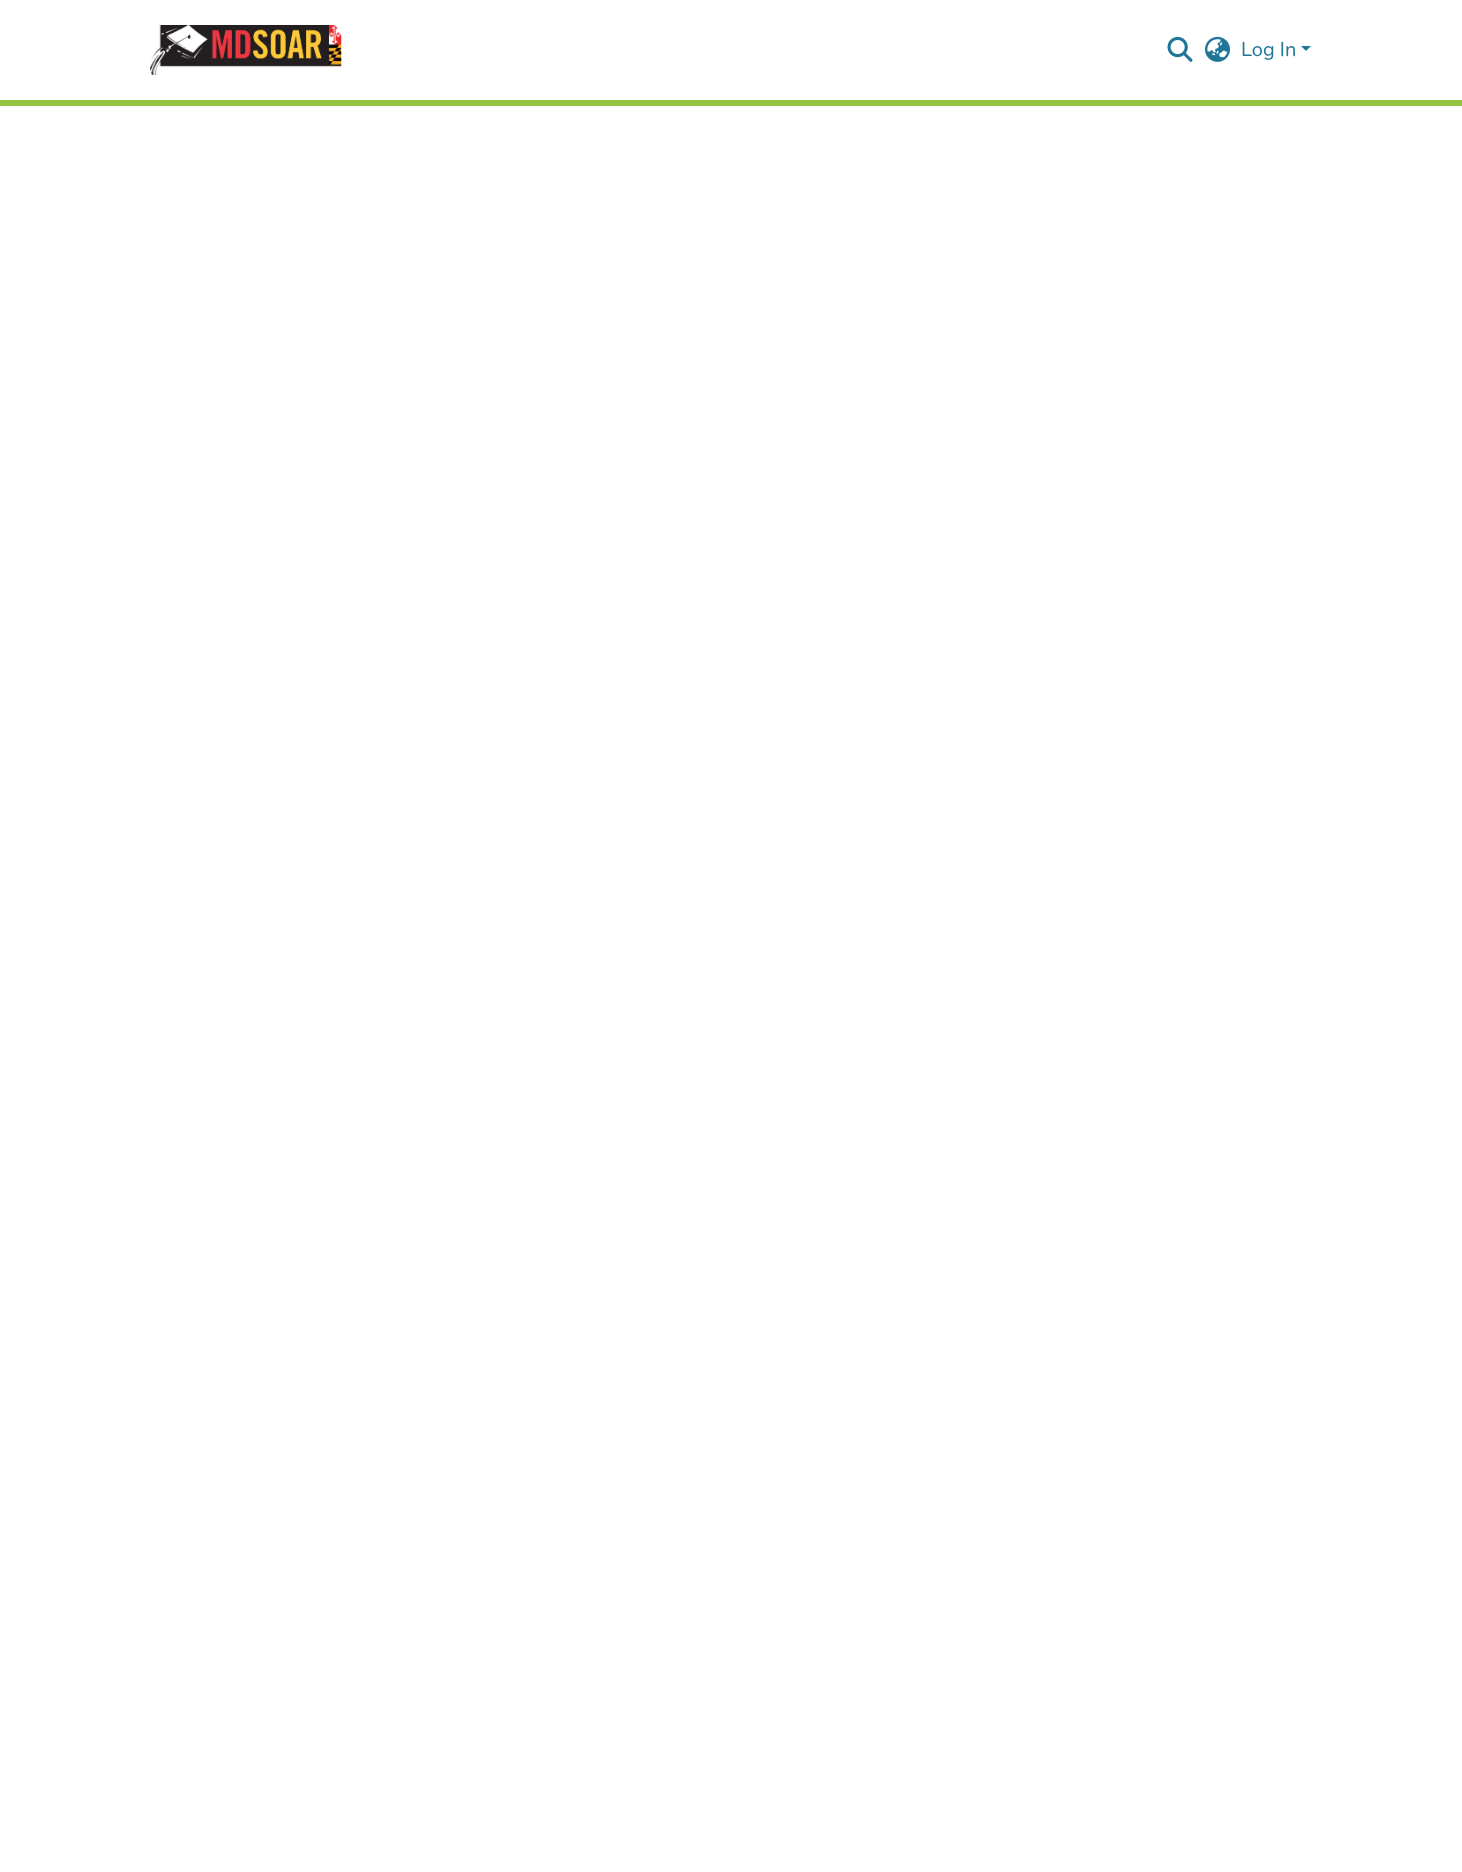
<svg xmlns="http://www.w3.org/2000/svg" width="1462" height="1872">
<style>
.a{font:20px Nunito;fill:#207698}
</style>
<rect width="100%" height="100%" fill="#fff"/>
<path fill="#92c642" d="M0 100h1462v6H0z"/>
<image href="1.png" x="150" y="25" width="192" height="50"/>
<image href="2.png" x="1167" y="36" width="26" height="26"/>
<image href="3.png" x="1205" y="36" width="25" height="26"/>
<path fill="#207698" d="M1301 46h10l-5 5z"/>
<text class="a" x="1241" y="56">Log In</text>
</svg>
